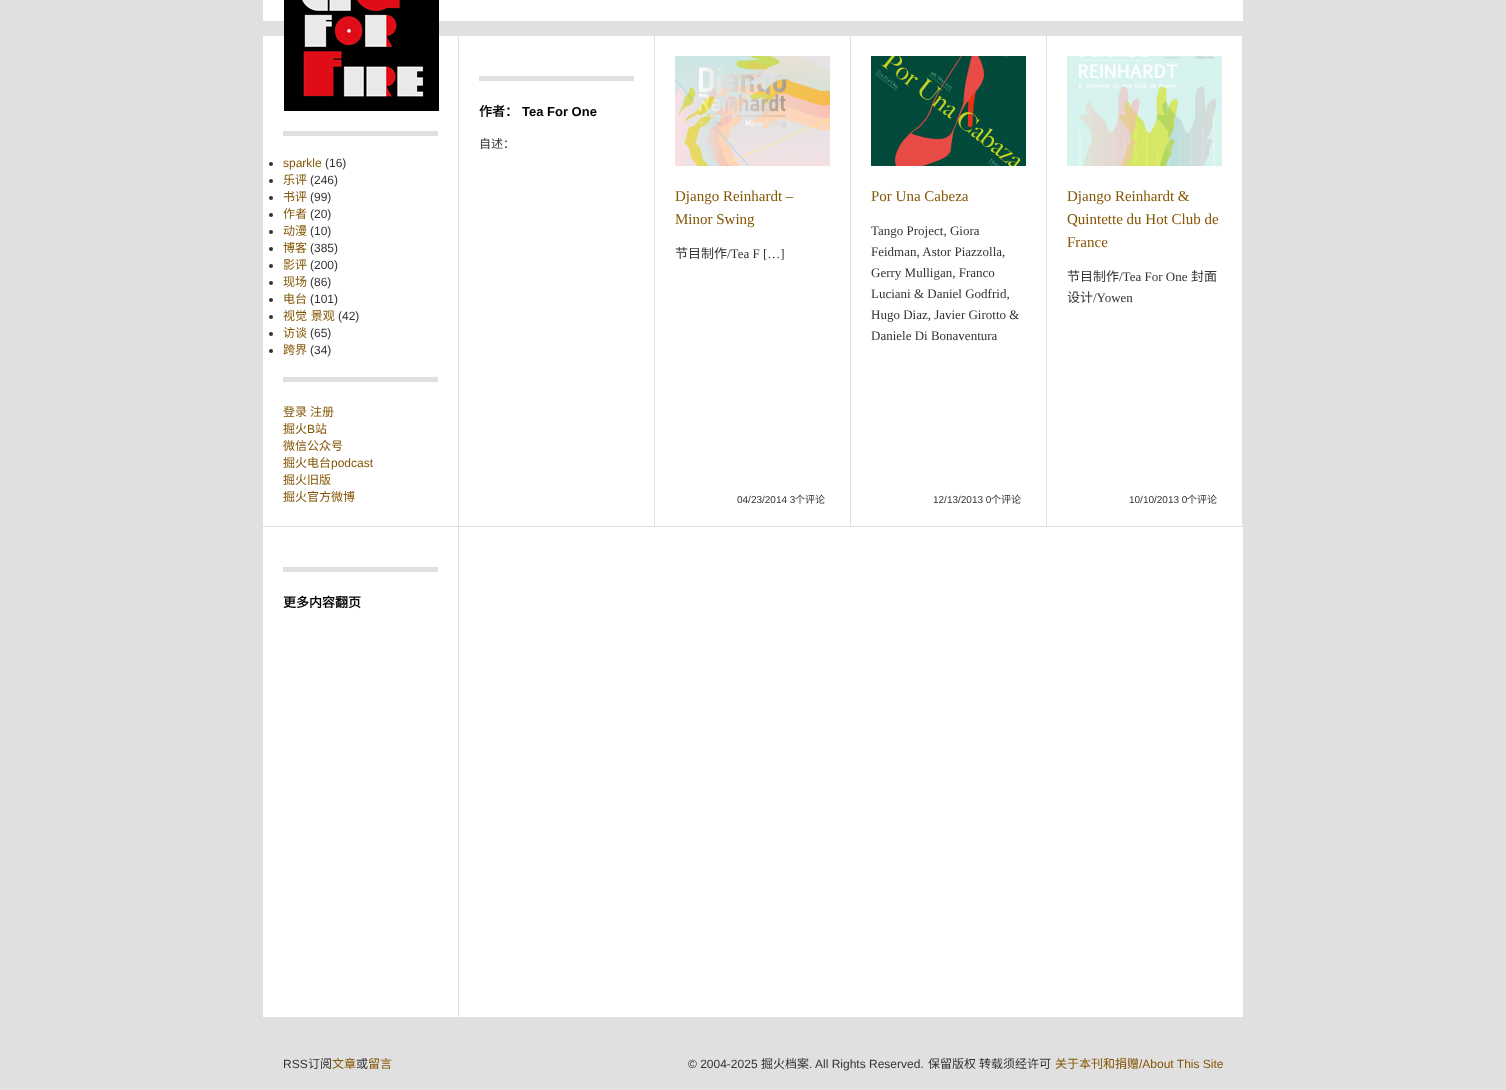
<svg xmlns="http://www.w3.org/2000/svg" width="1506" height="1090">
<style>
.a{font:bold 13px Noto Sans CJK SC;fill:#000}
.b{font:bold 13px Liberation Sans;fill:#000}
.c{font:12px Noto Sans CJK SC;fill:#333}
.d{font:12px Liberation Sans;fill:#835504}
.e{font:12px Liberation Sans;fill:#333}
.f{font:12px Noto Sans CJK SC;fill:#835504}
.g{font:15px Liberation Serif;fill:#835504}
.h{font:13px Noto Sans CJK SC;fill:#333}
.i{font:13px Liberation Serif;fill:#333}
.j{font:10px Liberation Sans;fill:#333}
.k{font:10px Noto Sans CJK SC;fill:#333}
</style>
<rect width="100%" height="100%" fill="#e0e0e0"/>
<path fill="#fff" d="M263 0h980v1017H263z"/>
<path fill="#e0e0e0" d="M263 21h980v15H263z"/>
<image href="1.png" x="284" y="0" width="155" height="111"/>
<path fill="#e0e0e0" d="M654 36h1v491H654z"/>
<path fill="#e0e0e0" d="M459 526h196v1H459z"/>
<path fill="#e0e0e0" d="M479 76h155v5H479z"/>
<path fill="#e0e0e0" d="M458 36h1v982H458z"/>
<path fill="#e0e0e0" d="M263 526h196v1H263z"/>
<path fill="#e0e0e0" d="M283 131h155v5H283z"/>
<circle fill="#333" cx="271" cy="164" r="2"/>
<circle fill="#333" cx="271" cy="181" r="2"/>
<circle fill="#333" cx="271" cy="198" r="2"/>
<circle fill="#333" cx="271" cy="215" r="2"/>
<circle fill="#333" cx="271" cy="232" r="2"/>
<circle fill="#333" cx="271" cy="249" r="2"/>
<circle fill="#333" cx="271" cy="266" r="2"/>
<circle fill="#333" cx="271" cy="283" r="2"/>
<circle fill="#333" cx="271" cy="300" r="2"/>
<circle fill="#333" cx="271" cy="317" r="2"/>
<circle fill="#333" cx="271" cy="334" r="2"/>
<circle fill="#333" cx="271" cy="351" r="2"/>
<path fill="#e0e0e0" d="M283 377h155v5H283z"/>
<path fill="#e0e0e0" d="M850 36h1v491H850z"/>
<path fill="#e0e0e0" d="M655 526h196v1H655z"/>
<image href="2.png" x="675" y="56" width="155" height="110"/>
<path fill="#e0e0e0" d="M1046 36h1v491H1046z"/>
<path fill="#e0e0e0" d="M851 526h196v1H851z"/>
<image href="3.png" x="871" y="56" width="155" height="110"/>
<path fill="#e0e0e0" d="M1242 36h1v491H1242z"/>
<path fill="#e0e0e0" d="M1047 526h196v1H1047z"/>
<image href="4.png" x="1067" y="56" width="155" height="110"/>
<path fill="#e0e0e0" d="M283 567h155v5H283z"/>
<text class="a" x="479" y="116">作者：</text>
<text class="b" x="522" y="116">Tea For One</text>
<text class="c" x="479" y="148">自述：</text>
<text class="d" x="283" y="167">sparkle</text>
<text class="e" x="325" y="167">(16)</text>
<text class="f" x="283" y="184">乐评</text>
<text class="e" x="310" y="184">(246)</text>
<text class="f" x="283" y="201">书评</text>
<text class="e" x="310" y="201">(99)</text>
<text class="f" x="283" y="218">作者</text>
<text class="e" x="310" y="218">(20)</text>
<text class="f" x="283" y="235">动漫</text>
<text class="e" x="310" y="235">(10)</text>
<text class="f" x="283" y="252">博客</text>
<text class="e" x="310" y="252">(385)</text>
<text class="f" x="283" y="269">影评</text>
<text class="e" x="310" y="269">(200)</text>
<text class="f" x="283" y="286">现场</text>
<text class="e" x="310" y="286">(86)</text>
<text class="f" x="283" y="303">电台</text>
<text class="e" x="310" y="303">(101)</text>
<text class="f" x="283" y="320" word-spacing="1">视觉 景观</text>
<text class="e" x="338" y="320">(42)</text>
<text class="f" x="283" y="337">访谈</text>
<text class="e" x="310" y="337">(65)</text>
<text class="f" x="283" y="354">跨界</text>
<text class="e" x="310" y="354">(34)</text>
<text class="f" x="283" y="416">登录</text>
<text class="f" x="310" y="416">注册</text>
<text class="f" x="283" y="433">掘火</text>
<text class="d" x="307" y="433">B</text>
<text class="f" x="315" y="433">站</text>
<text class="f" x="283" y="450">微信公众号</text>
<text class="f" x="283" y="467">掘火电台</text>
<text class="d" x="331" y="467">podcast</text>
<text class="f" x="283" y="484">掘火旧版</text>
<text class="f" x="283" y="501">掘火官方微博</text>
<text class="g" x="675" y="201">Django Reinhardt –</text>
<text class="g" x="675" y="224">Minor Swing</text>
<text class="h" x="675" y="258">节目制作</text>
<text class="i" x="727" y="258">/Tea F […]</text>
<text class="j" x="737" y="503">04/23/2014 3</text>
<text class="k" x="795" y="503">个评论</text>
<text class="g" x="871" y="201">Por Una Cabeza</text>
<text class="i" x="871" y="235">Tango Project, Giora</text>
<text class="i" x="871" y="256">Feidman, Astor Piazzolla,</text>
<text class="i" x="871" y="277">Gerry Mulligan, Franco</text>
<text class="i" x="871" y="298">Luciani &amp; Daniel Godfrid,</text>
<text class="i" x="871" y="319">Hugo Diaz, Javier Girotto &amp;</text>
<text class="i" x="871" y="340">Daniele Di Bonaventura</text>
<text class="j" x="933" y="503">12/13/2013 0</text>
<text class="k" x="991" y="503">个评论</text>
<text class="g" x="1067" y="201">Django Reinhardt &amp;</text>
<text class="g" x="1067" y="224">Quintette du Hot Club de</text>
<text class="g" x="1067" y="247">France</text>
<text class="h" x="1067" y="281">节目制作</text>
<text class="i" x="1119" y="281">/Tea For One</text>
<text class="h" x="1191" y="281">封面</text>
<text class="h" x="1067" y="302">设计</text>
<text class="i" x="1093" y="302">/Yowen</text>
<text class="j" x="1129" y="503">10/10/2013 0</text>
<text class="k" x="1187" y="503">个评论</text>
<text class="a" x="283" y="607">更多内容翻页</text>
<text class="e" x="283" y="1068">RSS</text>
<text class="c" x="308" y="1068">订阅</text>
<text class="f" x="332" y="1068">文章</text>
<text class="c" x="356" y="1068">或</text>
<text class="f" x="368" y="1068">留言</text>
<text class="e" x="688" y="1068">© 2004-2025</text>
<text class="c" x="761" y="1068">掘火档案</text>
<text class="e" x="809" y="1068">. All Rights Reserved.</text>
<text class="c" x="928" y="1068">保留版权</text>
<text class="c" x="979" y="1068">转载须经许可</text>
<text class="f" x="1055" y="1068">关于本刊和捐赠</text>
<text class="d" x="1139" y="1068">/About This Site</text>
</svg>
